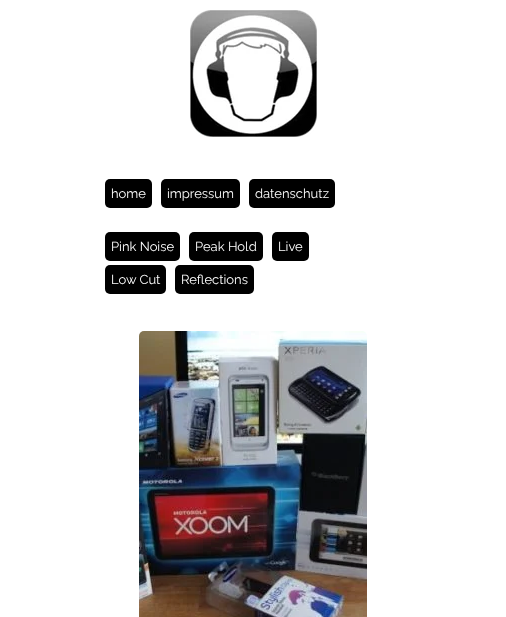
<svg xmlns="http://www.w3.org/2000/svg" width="506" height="617">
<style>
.a{font:13px Raleway;fill:#fff}
</style>
<rect width="100%" height="100%" fill="#fff"/>
<image href="1.png" x="190" y="10" width="127" height="127"/>
<rect fill="#000" x="105" y="179" width="47" height="29" rx="5"/>
<rect fill="#000" x="161" y="179" width="79" height="29" rx="5"/>
<rect fill="#000" x="249" y="179" width="86" height="29" rx="5"/>
<rect fill="#000" x="105" y="232" width="75" height="29" rx="5"/>
<rect fill="#000" x="189" y="232" width="74" height="29" rx="5"/>
<rect fill="#000" x="272" y="232" width="37" height="29" rx="5"/>
<rect fill="#000" x="105" y="265" width="61" height="29" rx="5"/>
<rect fill="#000" x="175" y="265" width="79" height="29" rx="5"/>
<image href="2.png" x="139" y="331" width="228" height="286"/>
<text class="a" x="111" y="198">home</text>
<text class="a" x="167" y="198">impressum</text>
<text class="a" x="255" y="198">datenschutz</text>
<text class="a" x="111" y="251">Pink Noise</text>
<text class="a" x="195" y="251">Peak Hold</text>
<text class="a" x="278" y="251">Live</text>
<text class="a" x="111" y="284">Low Cut</text>
<text class="a" x="181" y="284">Reflections</text>
</svg>
